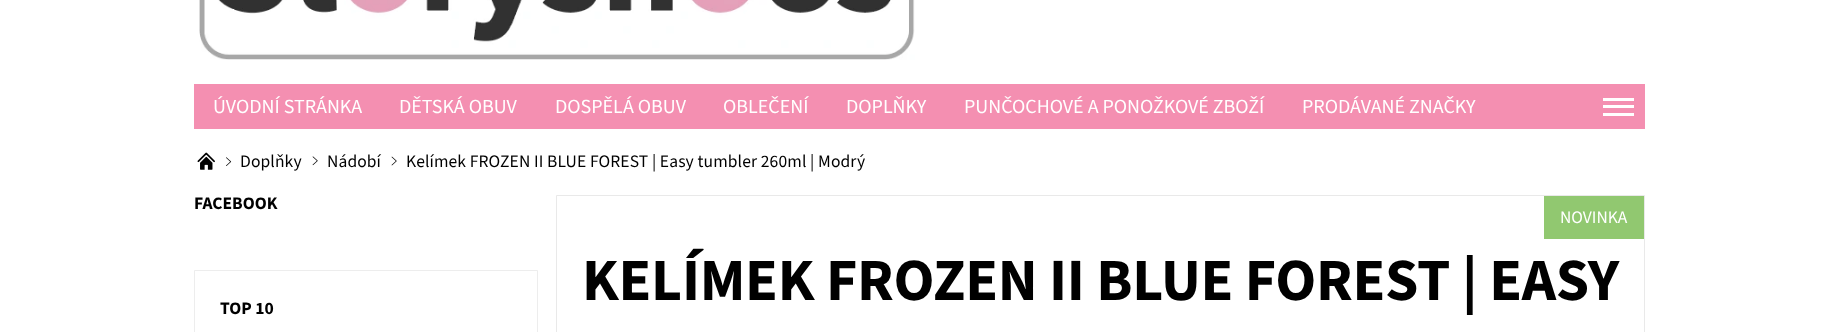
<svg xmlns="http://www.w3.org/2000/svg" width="1838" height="332">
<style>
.a{font:20px 'Source Sans 3';fill:#fff}
.b{font:17.5px 'Source Sans 3';letter-spacing:0.12px;fill:#000}
.c{font:bold 17.5px 'Source Sans 3';fill:#000}
.d{font:17.5px 'Source Sans 3';fill:#fff}
.e{font:bold 60px 'Source Sans 3';letter-spacing:-0.3px;fill:#000}
</style>
<rect width="100%" height="100%" fill="#fff"/>
<image href="1.png" x="199" y="0" width="716" height="60"/>
<path fill="#f48fb1" d="M194 84h1451v45H194z"/>
<path fill="#fff" d="M1603 98h31v3H1603z"/>
<path fill="#fff" d="M1603 105h31v3H1603z"/>
<path fill="#fff" d="M1603 113h31v3H1603z"/>
<image href="2.png" x="197" y="152" width="18" height="18"/>
<image href="3.png" x="226" y="157" width="6" height="9"/>
<image href="4.png" x="312" y="156" width="6" height="10"/>
<image href="5.png" x="391" y="156" width="6" height="10"/>
<path fill="none" stroke="#ededed" d="M194.5 270.5h343v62H194.5z"/>
<path fill="none" stroke="#e9e9e9" d="M556.5 195.5h1088v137H556.5z"/>
<path fill="#91c870" d="M1544 196h100v43H1544z"/>
<text class="a" x="213" y="113">ÚVODNÍ STRÁNKA</text>
<text class="a" x="399" y="113">DĚTSKÁ OBUV</text>
<text class="a" x="555" y="113">DOSPĚLÁ OBUV</text>
<text class="a" x="723" y="113">OBLEČENÍ</text>
<text class="a" x="846" y="113">DOPLŇKY</text>
<text class="a" x="964" y="113">PUNČOCHOVÉ A PONOŽKOVÉ ZBOŽÍ</text>
<text class="a" x="1302" y="113">PRODÁVANÉ ZNAČKY</text>
<text class="b" x="240" y="167">Doplňky</text>
<text class="b" x="327" y="167">Nádobí</text>
<text class="b" x="406" y="167">Kelímek FROZEN II BLUE FOREST | Easy tumbler 260ml | Modrý</text>
<text class="c" x="194" y="209">FACEBOOK</text>
<text class="c" x="220" y="314">TOP 10</text>
<text class="d" x="1560" y="223">NOVINKA</text>
<text class="e" x="582" y="300">KELÍMEK FROZEN II BLUE FOREST | EASY</text>
</svg>
